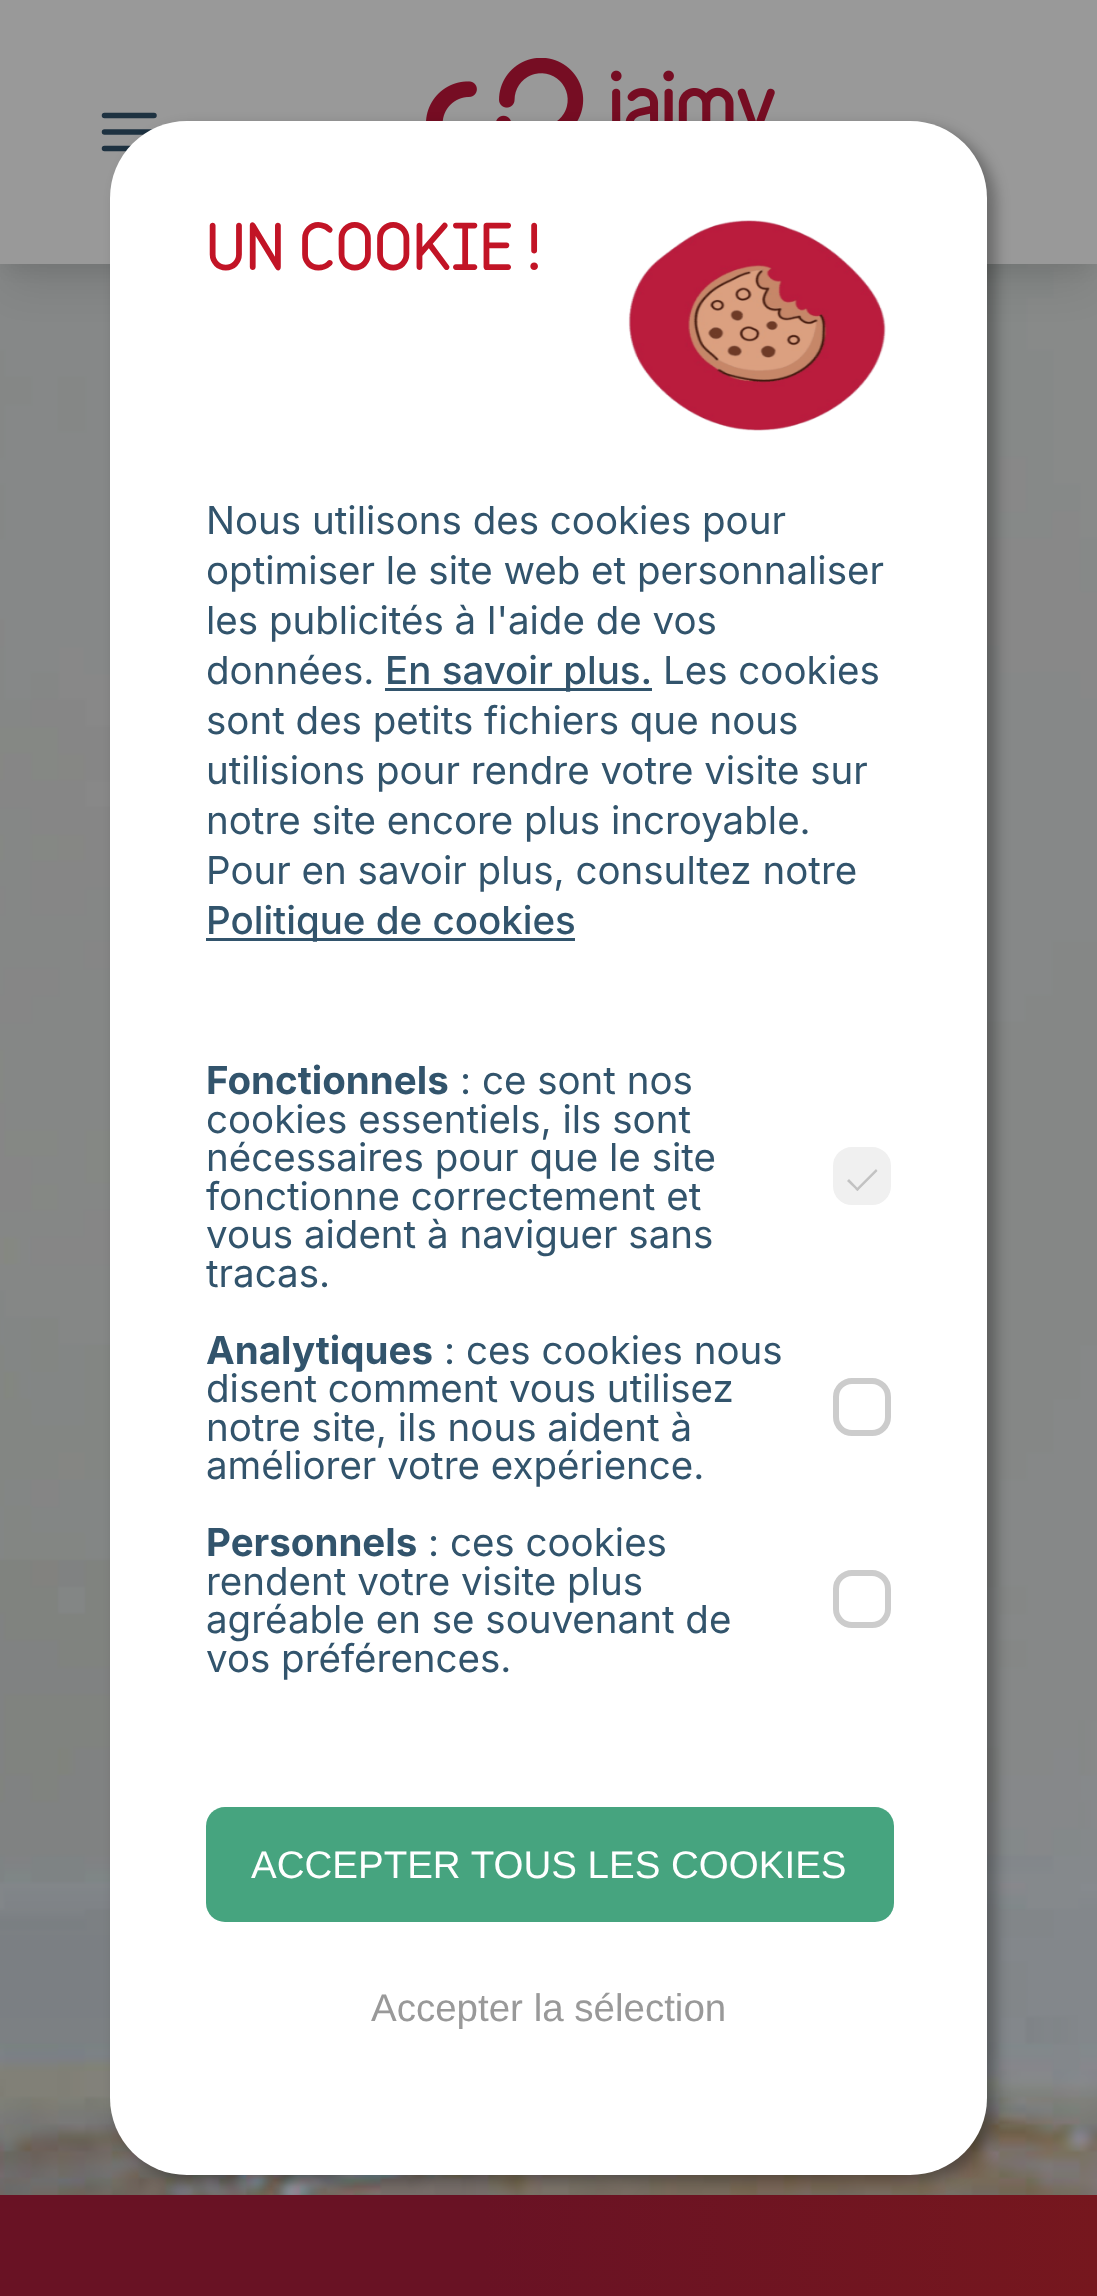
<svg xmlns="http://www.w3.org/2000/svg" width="1097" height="2296">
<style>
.a{font:bold 57.75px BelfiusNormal;fill:#c21426}
.b{font:38.5px Inter;fill:#32546c}
.c{font:500 38.5px Inter;fill:#32546c}
.d{font:bold 38.5px Inter;fill:#32546c}
.e{font:38.5px Liberation Sans;fill:#fff}
.f{font:38.5px Liberation Sans;fill:#999}
</style>
<defs>
<linearGradient id="g1" gradientUnits="userSpaceOnUse" x1="0" y1="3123" x2="1097" y2="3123"><stop offset="0" stop-color="#691224"/><stop offset="0.44" stop-color="#691224"/><stop offset="1" stop-color="#76171e"/></linearGradient>
</defs>
<rect width="100%" height="100%" fill="#fff"/>
<image href="2.png" x="0" y="264" width="1097" height="1931"/>
<path fill="#0000000d" filter="blur(8px)" d="M6 17h1086v253H6z"/>
<path fill="#0000001a" filter="blur(20.5px)" d="M8 36h1081v247H8z"/>
<path fill="#999" d="M0 0h1097v264H0z"/>
<image href="1.png" x="426" y="58" width="349" height="63"/>
<path fill="none" stroke="#1e3241" stroke-width="5.5" stroke-linecap="round" stroke-linejoin="round" d="M104.5 132h49.5m-49.5-16.5h49.5m-49.5 33h49.5"/>
<path fill="url(#g1)" d="M0 2195h1097v101H0z"/>
<rect fill="#0000004d" filter="blur(7px)" x="118" y="127" width="878" height="2054" rx="77"/>
<rect fill="#fff" x="110" y="121" width="877" height="2054" rx="77"/>
<image href="3.png" x="628" y="220" width="258" height="211"/>
<path fill="#32546c" d="M385 688h267v3H385z"/>
<path fill="#32546c" d="M206 938h369v3H206z"/>
<rect fill="#f0f0f0" stroke="#f0f0f0" stroke-width="6" x="836" y="1150" width="52" height="52" rx="16"/>
<path fill="#c2c2c2" d="M876 1169l1.5 2l-20 20l-2-1.5z"/>
<path fill="#c2c2c2" d="M849 1179l10 10.5l-1.5 1.5l-10.5-10z"/>
<rect fill="none" stroke="#ccc" stroke-width="6" x="836" y="1381" width="52" height="52" rx="16"/>
<rect fill="none" stroke="#ccc" stroke-width="6" x="836" y="1573" width="52" height="52" rx="16"/>
<rect fill="#46a47f" x="206" y="1807" width="688" height="115" rx="19"/>
<text class="a" x="206" y="270">UN COOKIE !</text>
<text class="b" x="206" y="534">Nous utilisons des cookies pour</text>
<text class="b" x="206" y="584">optimiser le site web et personnaliser</text>
<text class="b" x="206" y="634">les publicités à l'aide de vos</text>
<text class="b" x="206" y="684">données.</text>
<text class="c" x="385" y="684">En savoir plus.</text>
<text class="b" x="663" y="684">Les cookies</text>
<text class="b" x="206" y="734">sont des petits fichiers que nous</text>
<text class="b" x="206" y="784">utilisions pour rendre votre visite sur</text>
<text class="b" x="206" y="834">notre site encore plus incroyable.</text>
<text class="b" x="206" y="884">Pour en savoir plus, consultez notre</text>
<text class="c" x="206" y="934">Politique de cookies</text>
<text class="d" x="206" y="1094">Fonctionnels</text>
<text class="b" x="460" y="1094">: ce sont nos</text>
<text class="b" x="206" y="1133">cookies essentiels, ils sont</text>
<text class="b" x="206" y="1171">nécessaires pour que le site</text>
<text class="b" x="206" y="1210">fonctionne correctement et</text>
<text class="b" x="206" y="1248">vous aident à naviguer sans</text>
<text class="b" x="206" y="1287">tracas.</text>
<text class="d" x="206" y="1364">Analytiques</text>
<text class="b" x="444" y="1364">: ces cookies nous</text>
<text class="b" x="206" y="1402">disent comment vous utilisez</text>
<text class="b" x="206" y="1441">notre site, ils nous aident à</text>
<text class="b" x="206" y="1479">améliorer votre expérience.</text>
<text class="d" x="206" y="1556">Personnels</text>
<text class="b" x="428" y="1556">: ces cookies</text>
<text class="b" x="206" y="1595">rendent votre visite plus</text>
<text class="b" x="206" y="1633">agréable en se souvenant de</text>
<text class="b" x="206" y="1672">vos préférences.</text>
<text class="e" x="251" y="1878">ACCEPTER TOUS LES COOKIES</text>
<text class="f" x="371" y="2021">Accepter la sélection</text>
</svg>
